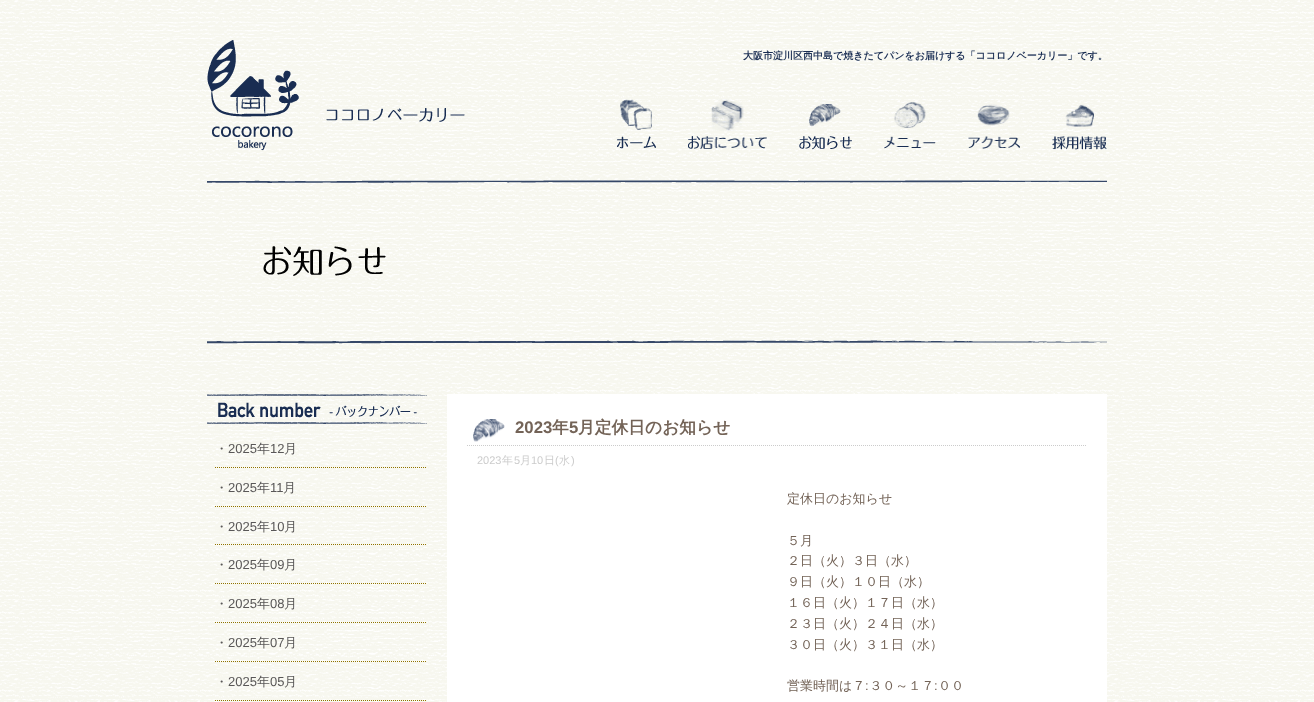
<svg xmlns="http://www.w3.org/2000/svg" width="1314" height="702">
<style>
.a{font:bold 10px WenQuanYi Zen Hei;fill:#192d52}
.b{font:500 13px WenQuanYi Zen Hei;fill:#595757}
.c{font:13px Liberation Sans;fill:#595757}
.d{font:bold 16.75px Liberation Sans;fill:#736357}
.e{font:bold 16.75px WenQuanYi Zen Hei;fill:#736357}
.f{font:11px Liberation Sans;fill:#ccc}
.g{font:500 11px WenQuanYi Zen Hei;fill:#ccc}
.h{font:500 13px WenQuanYi Zen Hei;fill:#736357}
.i{font:13px Liberation Sans;fill:#736357}
</style>
<rect width="100%" height="100%" fill="#fff"/>
<image href="1.png" x="0" y="0" width="1314" height="702"/>
<image href="2.png" x="207" y="40" width="258" height="111"/>
<image href="3.png" x="617" y="99" width="39" height="50"/>
<image href="4.png" x="688" y="99" width="79" height="50"/>
<image href="5.png" x="799" y="104" width="53" height="46"/>
<image href="6.png" x="884" y="102" width="52" height="47"/>
<image href="7.png" x="968" y="104" width="52" height="45"/>
<image href="8.png" x="1052" y="104" width="55" height="46"/>
<image href="9.png" x="207" y="180" width="900" height="164"/>
<image href="10.png" x="207" y="394" width="220" height="30"/>
<path fill="none" stroke="#917400" stroke-dasharray="1 1" d="M215 467.5h212"/>
<path fill="none" stroke="#917400" stroke-dasharray="1 1" d="M215 506.5h212"/>
<path fill="none" stroke="#917400" stroke-dasharray="1 1" d="M215 544.5h212"/>
<path fill="none" stroke="#917400" stroke-dasharray="1 1" d="M215 583.5h212"/>
<path fill="none" stroke="#917400" stroke-dasharray="1 1" d="M215 622.5h212"/>
<path fill="none" stroke="#917400" stroke-dasharray="1 1" d="M215 661.5h212"/>
<path fill="none" stroke="#917400" stroke-dasharray="1 1" d="M215 700.5h212"/>
<path fill="#fff" d="M447 394h660v308H447z"/>
<image href="11.png" x="473" y="419" width="32" height="23"/>
<path fill="none" stroke="#ccc" stroke-dasharray="1 1" d="M467 445.5h620"/>
<text class="a" x="743" y="59">大阪市淀川区西中島で焼きたてパンをお届けする「ココロノベーカリー」です。</text>
<text class="b" x="215" y="453">・</text>
<text class="c" x="228" y="453">2025</text>
<text class="b" x="257" y="453">年</text>
<text class="c" x="270" y="453">12</text>
<text class="b" x="284" y="453">月</text>
<text class="b" x="215" y="492">・</text>
<text class="c" x="228" y="492">2025</text>
<text class="b" x="257" y="492">年</text>
<text class="c" x="270" y="492">11</text>
<text class="b" x="283" y="492">月</text>
<text class="b" x="215" y="531">・</text>
<text class="c" x="228" y="531">2025</text>
<text class="b" x="257" y="531">年</text>
<text class="c" x="270" y="531">10</text>
<text class="b" x="284" y="531">月</text>
<text class="b" x="215" y="569">・</text>
<text class="c" x="228" y="569">2025</text>
<text class="b" x="257" y="569">年</text>
<text class="c" x="270" y="569">09</text>
<text class="b" x="284" y="569">月</text>
<text class="b" x="215" y="608">・</text>
<text class="c" x="228" y="608">2025</text>
<text class="b" x="257" y="608">年</text>
<text class="c" x="270" y="608">08</text>
<text class="b" x="284" y="608">月</text>
<text class="b" x="215" y="647">・</text>
<text class="c" x="228" y="647">2025</text>
<text class="b" x="257" y="647">年</text>
<text class="c" x="270" y="647">07</text>
<text class="b" x="284" y="647">月</text>
<text class="b" x="215" y="686">・</text>
<text class="c" x="228" y="686">2025</text>
<text class="b" x="257" y="686">年</text>
<text class="c" x="270" y="686">05</text>
<text class="b" x="284" y="686">月</text>
<text class="d" x="515" y="433">2023</text>
<text class="e" x="552" y="433">年</text>
<text class="d" x="569" y="433">5</text>
<text class="e" x="578" y="433">月定休日のお知らせ</text>
<text class="f" x="477" y="464">2023</text>
<text class="g" x="502" y="464">年</text>
<text class="f" x="514" y="464">5</text>
<text class="g" x="520" y="464">月</text>
<text class="f" x="531" y="464">10</text>
<text class="g" x="544" y="464">日</text>
<text class="f" x="555" y="464">(</text>
<text class="g" x="559" y="464">水</text>
<text class="f" x="571" y="464">)</text>
<text class="h" x="787" y="503">定休日のお知らせ</text>
<text class="h" x="787" y="545">５月</text>
<text class="h" x="787" y="565">２日（火）３日（水）</text>
<text class="h" x="787" y="586">９日（火）１０日（水）</text>
<text class="h" x="787" y="607">１６日（火）１７日（水）</text>
<text class="h" x="787" y="628">２３日（火）２４日（水）</text>
<text class="h" x="787" y="649">３０日（火）３１日（水）</text>
<text class="h" x="787" y="690">営業時間は７ ３０～１７ ００</text>
<text class="i" x="865" y="690">:</text>
<text class="i" x="934" y="690">:</text>
</svg>
